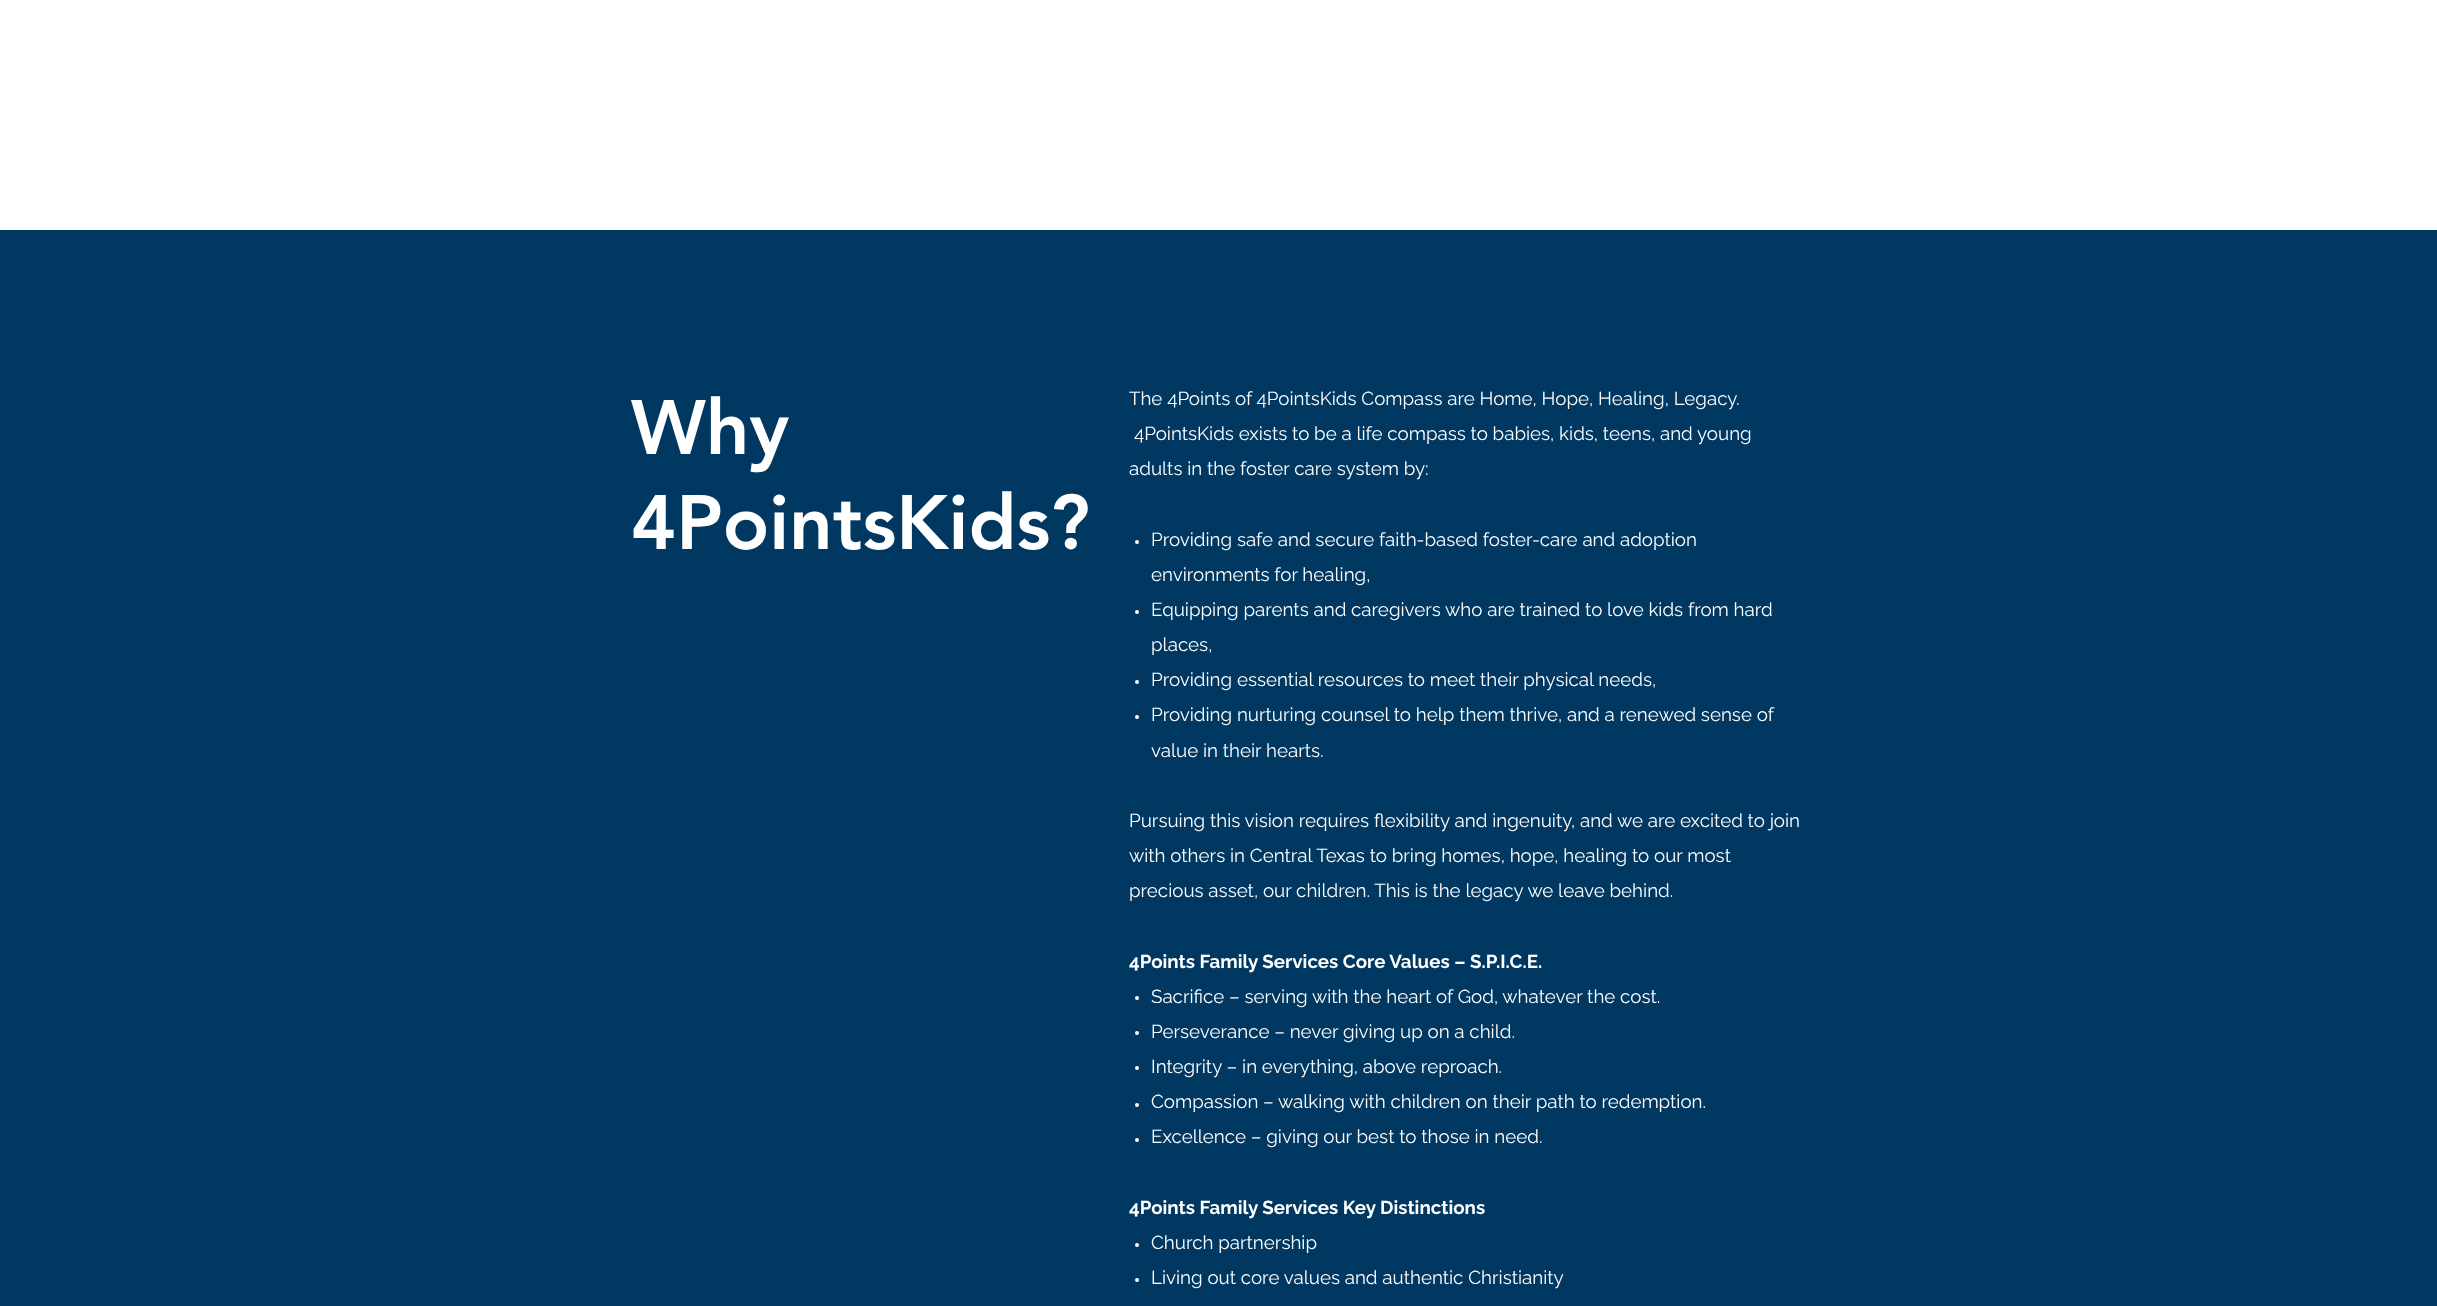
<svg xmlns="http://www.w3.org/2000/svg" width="2437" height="1306">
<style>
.a{font:900 76.25px 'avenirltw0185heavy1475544';fill:#fff}
.b{font:18.75px Raleway;fill:#fff}
.c{font:bold 18.75px Raleway;fill:#fff}
</style>
<rect width="100%" height="100%" fill="#fff"/>
<path fill="#003862" d="M0 230h2437v1076H0z"/>
<circle fill="#fff" cx="1137" cy="542" r="2"/>
<circle fill="#fff" cx="1137" cy="612" r="2"/>
<circle fill="#fff" cx="1137" cy="682" r="2"/>
<circle fill="#fff" cx="1137" cy="717" r="2"/>
<circle fill="#fff" cx="1137" cy="998" r="2"/>
<circle fill="#fff" cx="1137" cy="1033" r="2"/>
<circle fill="#fff" cx="1137" cy="1068" r="2"/>
<circle fill="#fff" cx="1137" cy="1105" r="2"/>
<circle fill="#fff" cx="1137" cy="1140" r="2"/>
<circle fill="#fff" cx="1137" cy="1245" r="2"/>
<circle fill="#fff" cx="1137" cy="1280" r="2"/>
<text class="a" x="631" y="454">Why</text>
<text class="a" x="631" y="549">4PointsKids?</text>
<text class="b" x="1129" y="405">The 4Points of 4PointsKids Compass are Home, Hope, Healing, Legacy.</text>
<text class="b" x="1134" y="440">4PointsKids exists to be a life compass to babies, kids, teens, and young</text>
<text class="b" x="1129" y="475">adults in the foster care system by:</text>
<text class="b" x="1151" y="546">Providing safe and secure faith-based foster-care and adoption</text>
<text class="b" x="1151" y="581">environments for healing,</text>
<text class="b" x="1151" y="616">Equipping parents and caregivers who are trained to love kids from hard</text>
<text class="b" x="1151" y="651">places,</text>
<text class="b" x="1151" y="686">Providing essential resources to meet their physical needs,</text>
<text class="b" x="1151" y="721">Providing nurturing counsel to help them thrive, and a renewed sense of</text>
<text class="b" x="1151" y="757">value in their hearts.</text>
<text class="b" x="1129" y="827">Pursuing this vision requires flexibility and ingenuity, and we are excited to join</text>
<text class="b" x="1129" y="862">with others in Central Texas to bring homes, hope, healing to our most</text>
<text class="b" x="1129" y="897">precious asset, our children. This is the legacy we leave behind.</text>
<text class="c" x="1129" y="968">4Points Family Services Core Values – S.P.I.C.E.</text>
<text class="b" x="1151" y="1003">Sacrifice – serving with the heart of God, whatever the cost.</text>
<text class="b" x="1151" y="1038">Perseverance – never giving up on a child.</text>
<text class="b" x="1151" y="1073">Integrity – in everything, above reproach.</text>
<text class="b" x="1151" y="1108">Compassion – walking with children on their path to redemption.</text>
<text class="b" x="1151" y="1143">Excellence – giving our best to those in need.</text>
<text class="c" x="1129" y="1214">4Points Family Services Key Distinctions</text>
<text class="b" x="1151" y="1249">Church partnership</text>
<text class="b" x="1151" y="1284">Living out core values and authentic Christianity</text>
</svg>
